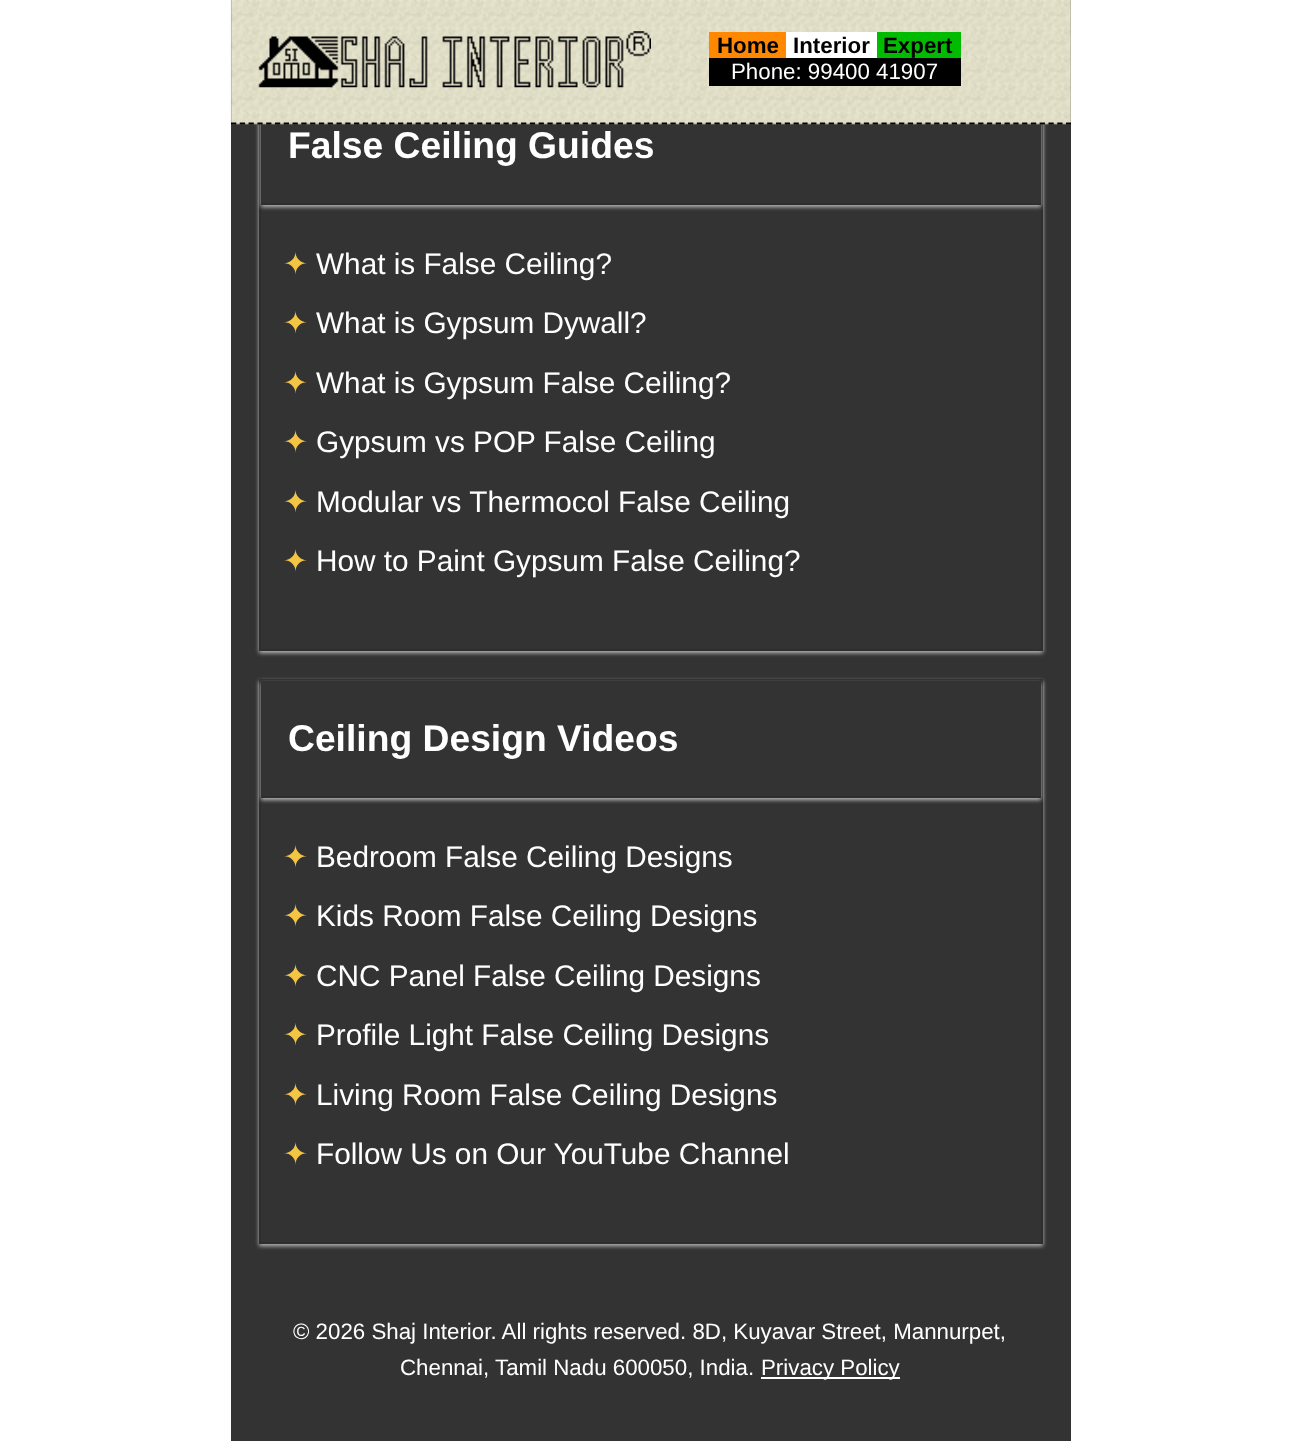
<svg xmlns="http://www.w3.org/2000/svg" width="1299" height="1441">
<style>
.a{font:bold 22.3px Liberation Sans;fill:#000}
.b{font:22.3px Liberation Sans;fill:#fff}
.c{font:bold 37.25px Liberation Sans;fill:#fff}
.d{font:29.75px DejaVu Sans;fill:#f4c542}
.e{font:29.75px Liberation Sans;fill:#fff}
</style>
<defs>
<clipPath id="clip1"><path d="M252 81h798v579h-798zm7 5h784v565h-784z" clip-rule="evenodd"/></clipPath>
<clipPath id="clip2"><path d="M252 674h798v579h-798zm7 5h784v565h-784z" clip-rule="evenodd"/></clipPath>
<clipPath id="clip3"><path d="M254 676h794v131h-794zm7 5h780v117h-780z" clip-rule="evenodd"/></clipPath>
</defs>
<rect width="100%" height="100%" fill="#fff"/>
<path fill="#333" d="M231 0h840v1441H231z"/>
<g clip-path="url(#clip1)">
<path fill="#bbb" filter="blur(2px)" d="M259 88h784v565H259z"/>
</g>
<path fill="none" stroke="#2e2e2e" stroke-width="2" d="M260 87h782v563H260z"/>
<path fill="#bbb" filter="blur(2px)" d="M261 89h780v118H261z"/>
<path fill="#333" d="M261 123h780v80H261z"/>
<image href="1.png" x="230" y="0" width="841" height="125"/>
<path fill="none" stroke="#000" stroke-width="1.8" stroke-dasharray="5.25 3.54" d="M231 123.5h840"/>
<image href="2.png" x="258" y="31" width="393" height="57"/>
<path fill="#000" d="M709 58h252v28H709z"/>
<path fill="#f80" d="M709 32h77v26H709z"/>
<path fill="#fff" d="M786 32h91v26H786z"/>
<path fill="#0b0" d="M877 32h84v26H877z"/>
<path fill="#2e2e2e" d="M261 203h780v2H261z"/>
<g clip-path="url(#clip2)">
<path fill="#bbb" filter="blur(2px)" d="M259 681h784v565H259z"/>
</g>
<path fill="none" stroke="#2e2e2e" stroke-width="2" d="M260 680h782v563H260z"/>
<g clip-path="url(#clip3)">
<path fill="#bbb" filter="blur(2px)" d="M261 683h780v117H261z"/>
</g>
<path fill="#2e2e2e" d="M261 796h780v2H261z"/>
<path fill="#fff" d="M761 1377h139v2H761z"/>
<text class="a" x="717" y="53">Home</text>
<text class="a" x="793" y="53">Interior</text>
<text class="a" x="883" y="53">Expert</text>
<text class="b" x="731" y="79">Phone: 99400 41907</text>
<text class="c" x="288" y="158">False Ceiling Guides</text>
<text class="d" x="283" y="274">✦</text>
<text class="e" x="316" y="274">What is False Ceiling?</text>
<text class="d" x="283" y="333">✦</text>
<text class="e" x="316" y="333">What is Gypsum Dywall?</text>
<text class="d" x="283" y="393">✦</text>
<text class="e" x="316" y="393">What is Gypsum False Ceiling?</text>
<text class="d" x="283" y="452">✦</text>
<text class="e" x="316" y="452">Gypsum vs POP False Ceiling</text>
<text class="d" x="283" y="512">✦</text>
<text class="e" x="316" y="512">Modular vs Thermocol False Ceiling</text>
<text class="d" x="283" y="571">✦</text>
<text class="e" x="316" y="571">How to Paint Gypsum False Ceiling?</text>
<text class="c" x="288" y="751">Ceiling Design Videos</text>
<text class="d" x="283" y="867">✦</text>
<text class="e" x="316" y="867">Bedroom False Ceiling Designs</text>
<text class="d" x="283" y="926">✦</text>
<text class="e" x="316" y="926">Kids Room False Ceiling Designs</text>
<text class="d" x="283" y="986">✦</text>
<text class="e" x="316" y="986">CNC Panel False Ceiling Designs</text>
<text class="d" x="283" y="1045">✦</text>
<text class="e" x="316" y="1045">Profile Light False Ceiling Designs</text>
<text class="d" x="283" y="1105">✦</text>
<text class="e" x="316" y="1105">Living Room False Ceiling Designs</text>
<text class="d" x="283" y="1164">✦</text>
<text class="e" x="316" y="1164">Follow Us on Our YouTube Channel</text>
<text class="b" x="293" y="1339">© 2026 Shaj Interior. All rights reserved. 8D, Kuyavar Street, Mannurpet,</text>
<text class="b" x="400" y="1375">Chennai, Tamil Nadu 600050, India.</text>
<text class="b" x="761" y="1375">Privacy Policy</text>
</svg>
